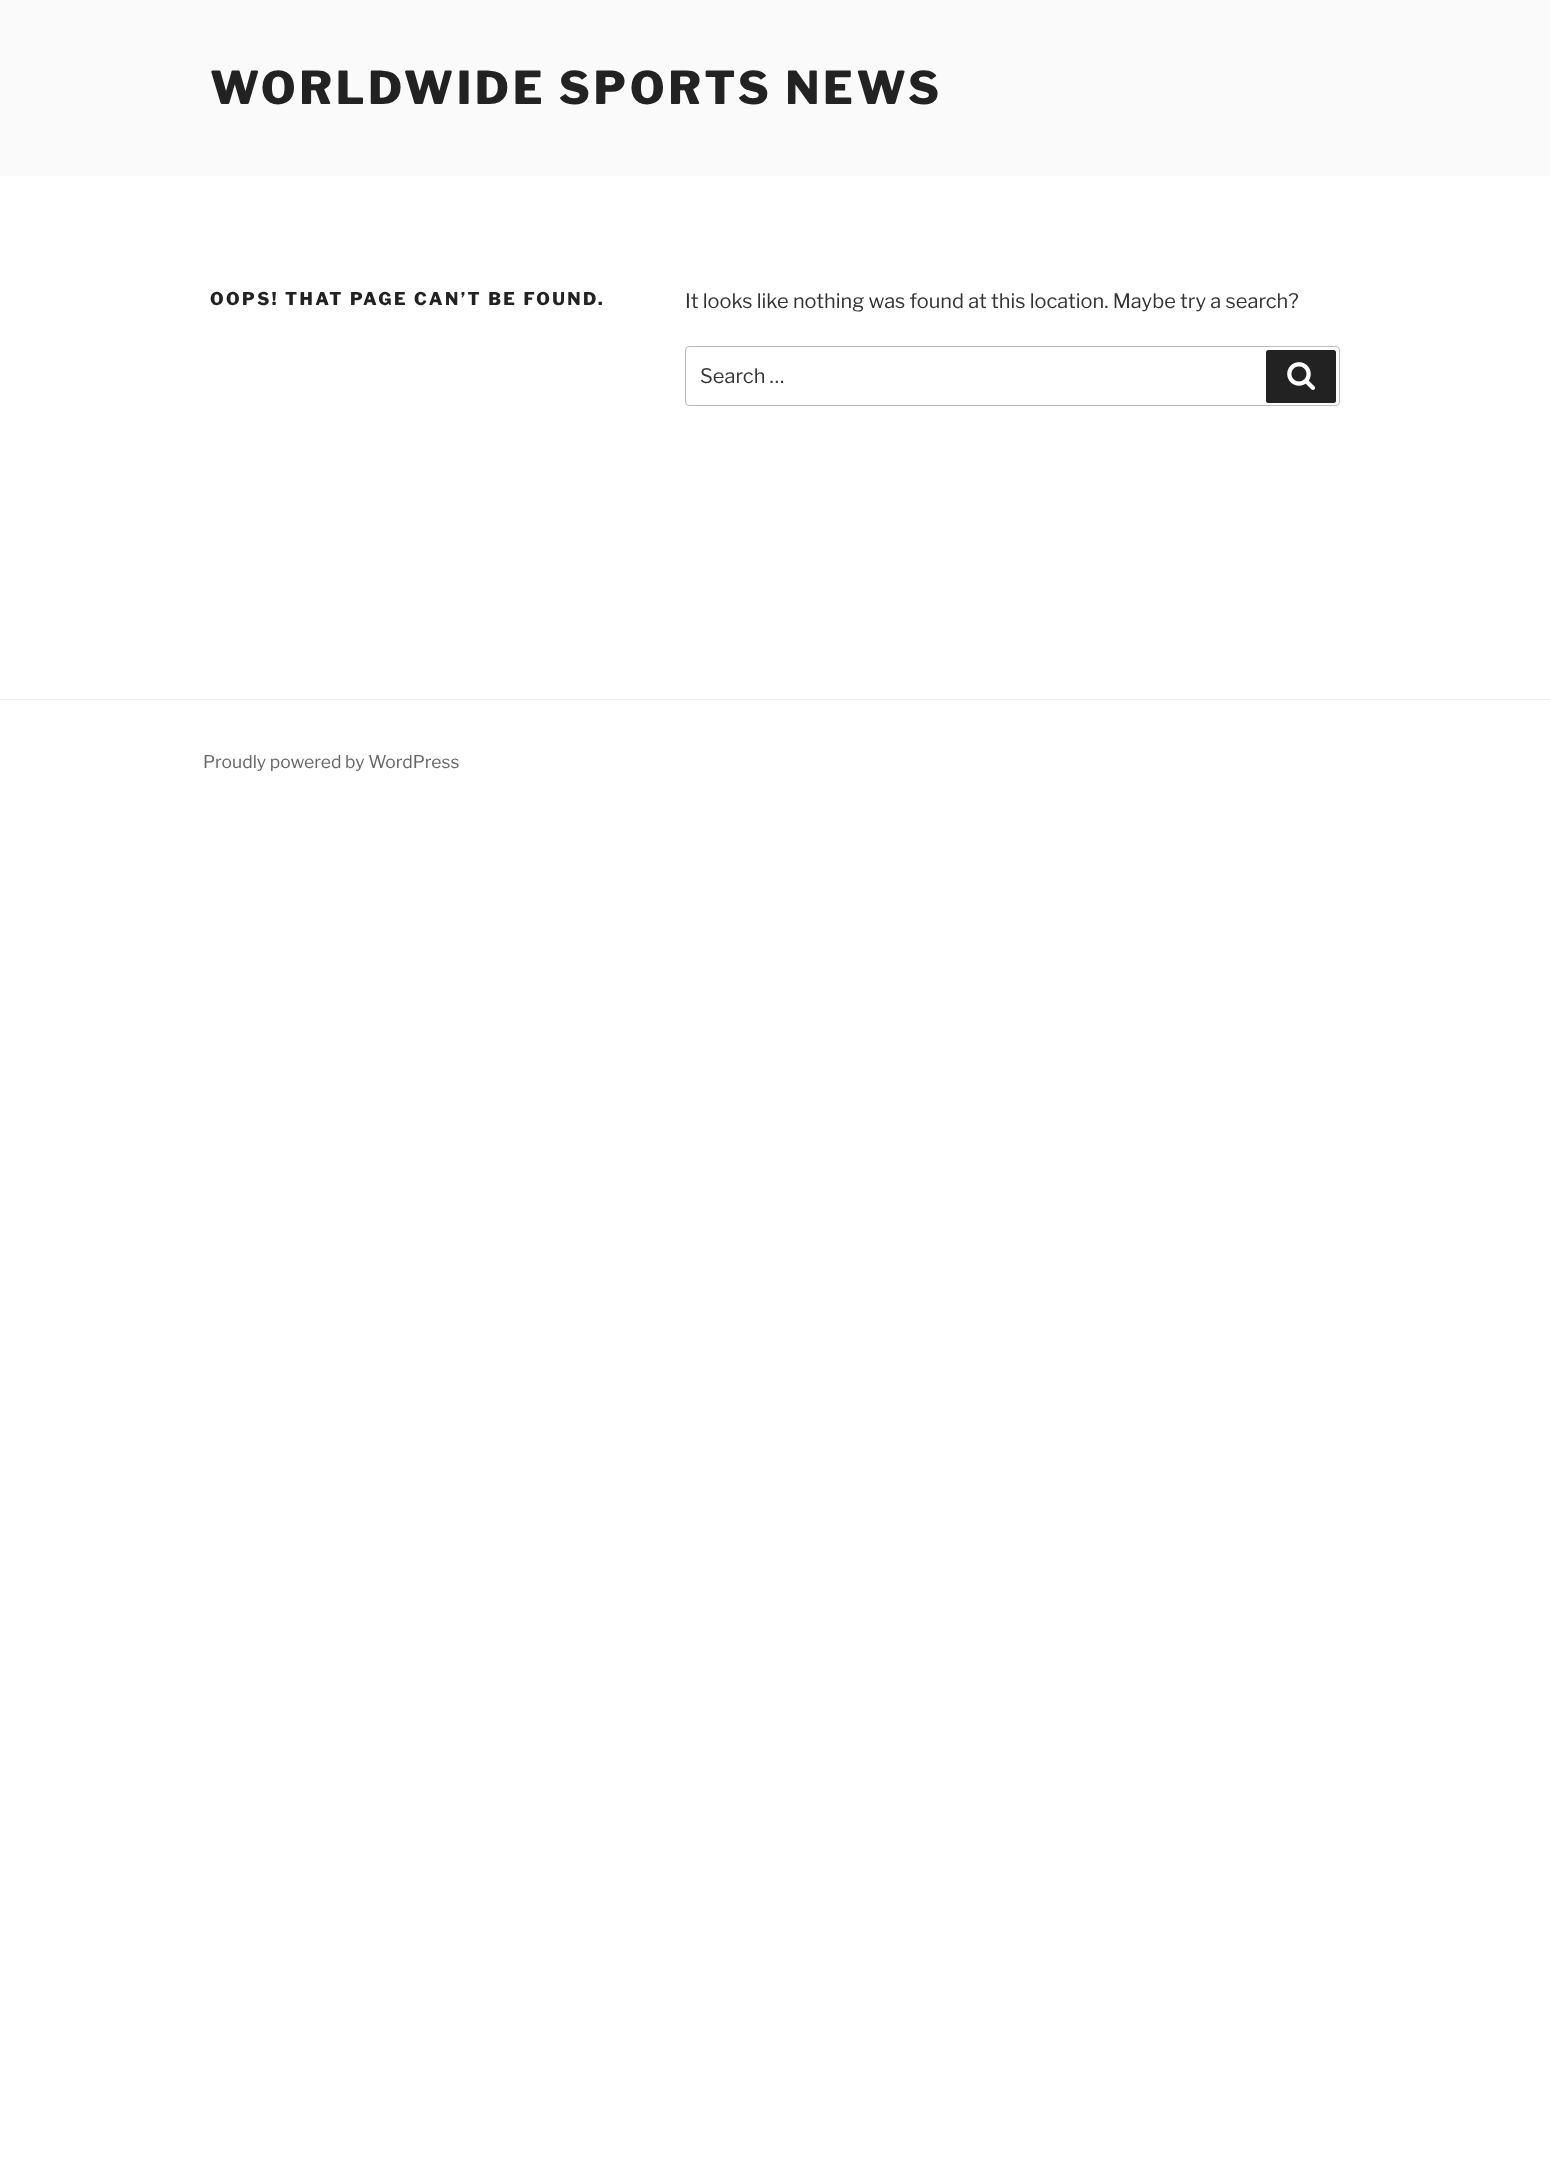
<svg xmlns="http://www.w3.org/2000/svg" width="1550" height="2160">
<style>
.a{font:100 45px Libre Franklin;letter-spacing:3.6px;fill:#222}
.b{font:100 17.5px Libre Franklin;letter-spacing:2.45px;fill:#222}
.c{font:100 20px 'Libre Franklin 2';fill:#333}
.d{font:100 17.5px 'Libre Franklin 2';fill:#666}
</style>
<rect width="100%" height="100%" fill="#fff"/>
<path fill="#fafafa" d="M0 0h1550v176H0z"/>
<rect fill="none" stroke="#bbb" x="685.5" y="346.5" width="654" height="59" rx="3.5"/>
<rect fill="#222" x="1266" y="350" width="70" height="53" rx="2.5"/>
<image href="1.png" x="1287" y="362" width="28" height="28"/>
<path fill="#eee" d="M0 699h1550v1H0z"/>
<text class="a" x="210" y="104">WORLDWIDE SPORTS NEWS</text>
<text class="b" x="210" y="305">OOPS! THAT PAGE CAN’T BE FOUND.</text>
<text class="c" x="685" y="308">It looks like nothing was found at this location. Maybe try a search?</text>
<text class="c" x="700" y="383">Search …</text>
<text class="d" x="203" y="768">Proudly powered by WordPress</text>
</svg>
